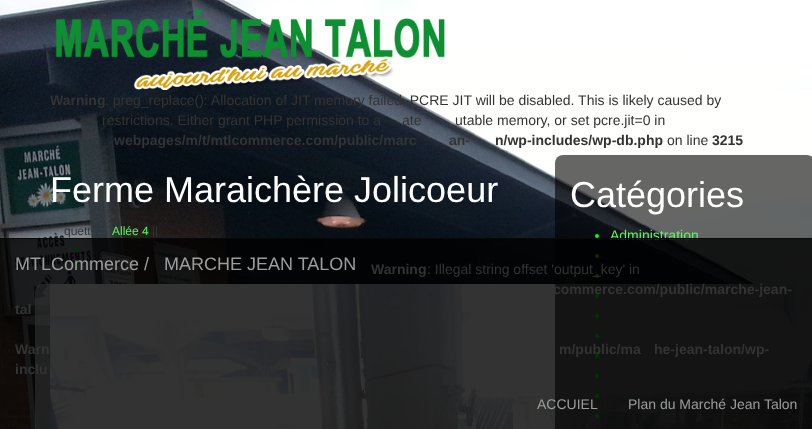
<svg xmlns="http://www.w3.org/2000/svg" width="812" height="429">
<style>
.a{font:bold 14px Liberation Sans;fill:#333}
.b{font:14px Liberation Sans;fill:#333}
.c{font:36px Liberation Sans;fill:#fff}
.d{font:12px Liberation Sans;fill:#333}
.e{font:12px Liberation Sans;fill:#55fc58}
.f{font:14px Liberation Sans;fill:#55fc58}
.g{font:18px Liberation Sans;fill:#9d9d9d}
.h{font:14px Liberation Sans;fill:#9d9d9d}
</style>
<rect width="100%" height="100%" fill="#fff"/>
<image href="1.png" x="0" y="0" width="812" height="429"/>
<image href="2.png" x="55" y="10" width="390" height="80"/>
<circle fill="#0f0" cx="78" cy="249" r="2"/>
<circle fill="#0f0" cx="78" cy="266" r="2"/>
<rect fill="#ffffff99" x="35" y="284" width="347" height="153" rx="8"/>
<image href="3.png" x="50" y="284" width="762" height="145"/>
<rect fill="#00000099" x="555" y="155" width="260" height="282" rx="8"/>
<circle fill="#0f0" cx="597" cy="236" r="2"/>
<circle fill="#0f0" cx="597" cy="256" r="2"/>
<circle fill="#0f0" cx="597" cy="276" r="2"/>
<circle fill="#0f0" cx="597" cy="296" r="2"/>
<circle fill="#0f0" cx="597" cy="316" r="2"/>
<circle fill="#0f0" cx="597" cy="336" r="2"/>
<circle fill="#0f0" cx="597" cy="356" r="2"/>
<circle fill="#0f0" cx="597" cy="376" r="2"/>
<circle fill="#0f0" cx="597" cy="396" r="2"/>
<circle fill="#0f0" cx="597" cy="416" r="2"/>
<text class="a" x="50" y="105">Warning</text>
<text class="b" x="105" y="105">: preg_replace(): Allocation of JIT memory failed, PCRE JIT will be disabled. This is likely caused by</text>
<text class="b" x="102" y="125">restrictions. Either grant PHP permission to a</text>
<text class="b" x="402" y="125">ate</text>
<text class="b" x="455" y="125">utable memory, or set pcre.jit=0 in</text>
<text class="a" x="114" y="145">webpages/m/t/mtlcommerce.com/public/marc</text>
<text class="a" x="449" y="145">an-</text>
<text class="a" x="495" y="145">n/wp-includes/wp-db.php</text>
<text class="b" x="667" y="145">on line</text>
<text class="a" x="712" y="145">3215</text>
<text class="c" x="50" y="202">Ferme Maraichère Jolicoeur</text>
<text class="d" x="64" y="235">quett</text>
<text class="e" x="112" y="235">Allée 4</text>
<text class="d" x="152" y="235">||</text>
<text class="c" x="570" y="207">Catégories</text>
<text class="f" x="610" y="240">Administration</text>
<path fill="#000000cc" d="M0 239h812v190H0z"/>
<path fill="#080808" d="M0 238h812v1H0z"/>
<text class="g" x="15" y="270">MTLCommerce /</text>
<text class="g" x="164" y="270">MARCHE JEAN TALON</text>
<text class="a" x="371" y="274">Warning</text>
<text class="b" x="427" y="274">: Illegal string offset 'output_key' in</text>
<text class="a" x="553" y="294">commerce.com/public/marche-jean-</text>
<text class="a" x="15" y="314">tal</text>
<text class="a" x="15" y="354">Warn</text>
<text class="a" x="559" y="354">m/public/ma</text>
<text class="a" x="654" y="354">he-jean-talon/wp-</text>
<text class="a" x="15" y="374">inclu</text>
<text class="h" x="537" y="409">ACCUIEL</text>
<text class="h" x="628" y="409">Plan du Marché Jean Talon</text>
</svg>
